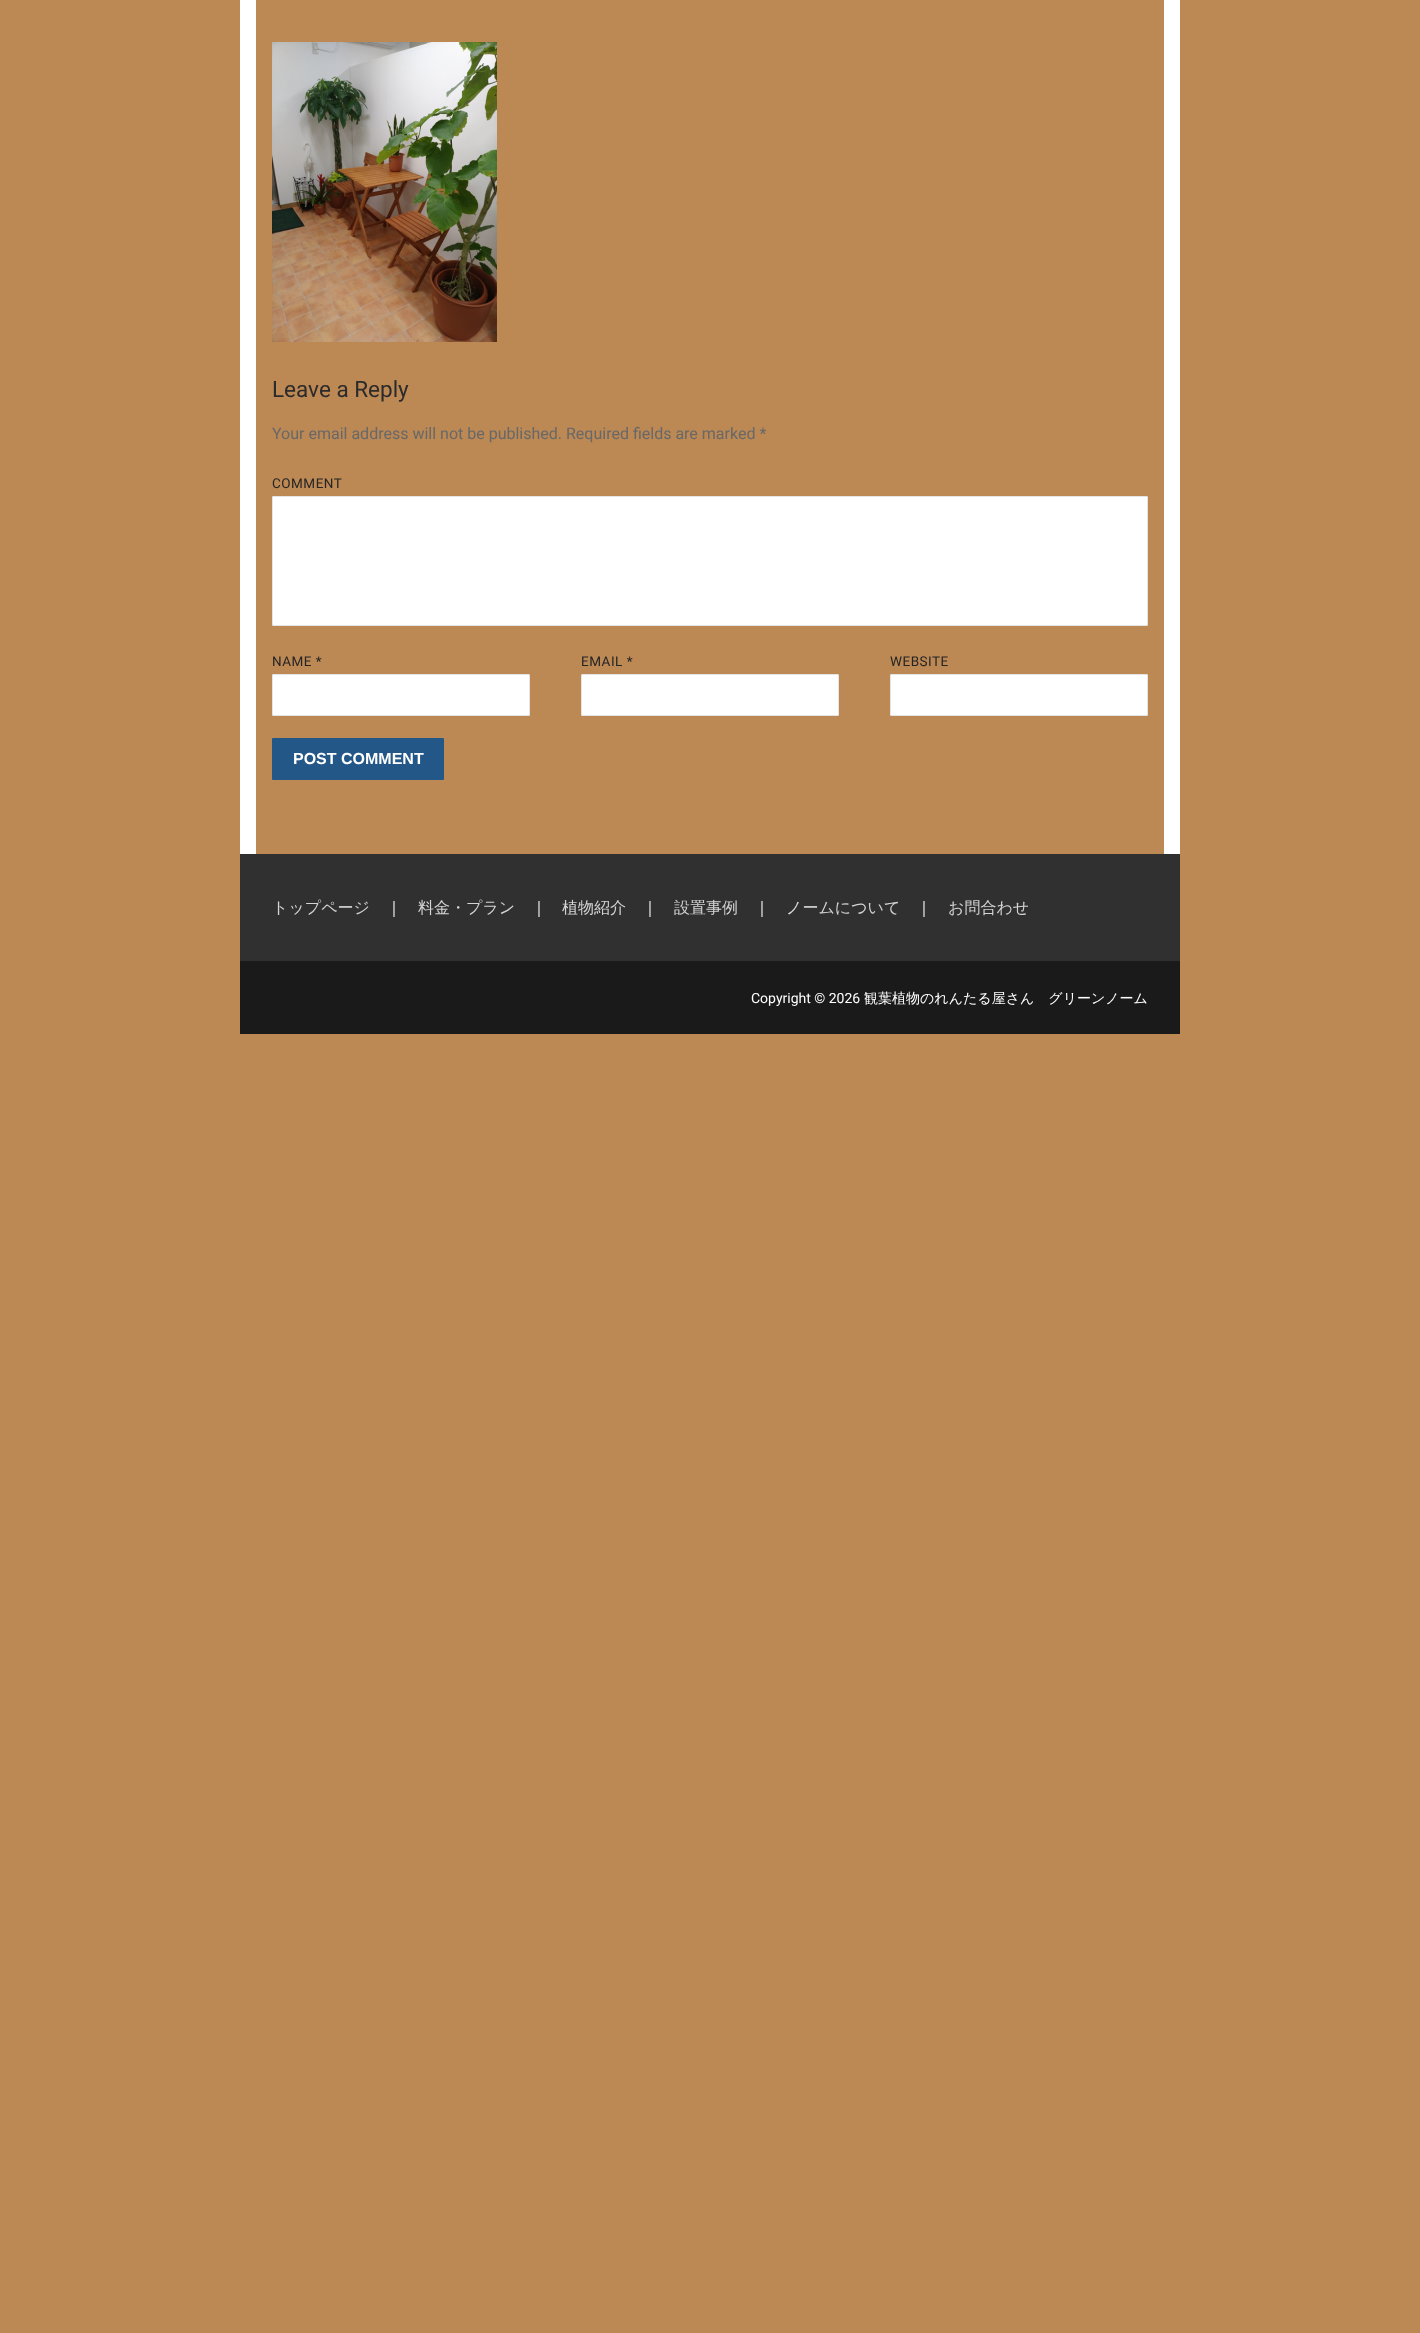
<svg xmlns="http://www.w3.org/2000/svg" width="1420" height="2333">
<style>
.a{font:22.5px Roboto;fill:#2b2b2b}
.b{font:16px Roboto;fill:#686868}
.c{font:13.5px Roboto;letter-spacing:0.5px;fill:#252525}
.d{font:bold 16px Liberation Sans;fill:#fff}
.e{font:500 16px WenQuanYi Zen Hei;fill:#d4d4d4}
.f{font:500 16px WenQuanYi Zen Hei;fill:#fff}
.g{font:14px Roboto;fill:#fff}
.h{font:500 14px WenQuanYi Zen Hei;fill:#fff}
</style>
<rect width="100%" height="100%" fill="#bc8854"/>
<path fill="#fff" d="M240 0h940v854H240z"/>
<path fill="#bc8854" d="M256 0h908v854H256z"/>
<image href="1.png" x="272" y="42" width="225" height="300"/>
<rect fill="#fff" stroke="#e5e5e5" x="272.5" y="496.5" width="875" height="129" rx="0.5"/>
<rect fill="#fff" stroke="#e5e5e5" x="272.5" y="674.5" width="257" height="41" rx="0.5"/>
<rect fill="#fff" stroke="#e5e5e5" x="581.5" y="674.5" width="257" height="41" rx="0.5"/>
<rect fill="#fff" stroke="#e5e5e5" x="890.5" y="674.5" width="257" height="41" rx="0.5"/>
<rect fill="#235787" x="272" y="738" width="172" height="42" rx="1"/>
<path fill="#303030" d="M240 854h940v107H240z"/>
<path fill="#1a1a1a" d="M240 961h940v73H240z"/>
<text class="a" x="272" y="397">Leave a Reply</text>
<text class="b" x="272" y="439">Your email address will not be published. Required fields are marked *</text>
<text class="c" x="272" y="488">COMMENT</text>
<text class="c" x="272" y="666">NAME *</text>
<text class="c" x="581" y="666">EMAIL *</text>
<text class="c" x="890" y="666">WEBSITE</text>
<text class="d" x="293" y="764">POST COMMENT</text>
<text class="e" x="272" y="913">トップページ</text>
<text class="f" x="386" y="913">｜</text>
<text class="e" x="418" y="913">料金・プラン</text>
<text class="f" x="531" y="913">｜</text>
<text class="e" x="562" y="913">植物紹介</text>
<text class="f" x="642" y="913">｜</text>
<text class="e" x="674" y="913">設置事例</text>
<text class="f" x="754" y="913">｜</text>
<text class="e" x="786" y="913">ノームについて</text>
<text class="f" x="916" y="913">｜</text>
<text class="e" x="948" y="913">お問合わせ</text>
<text class="g" x="751" y="1003">Copyright © 2026</text>
<text class="h" x="864" y="1003">観葉植物のれんたる屋さん　グリーンノーム</text>
</svg>
